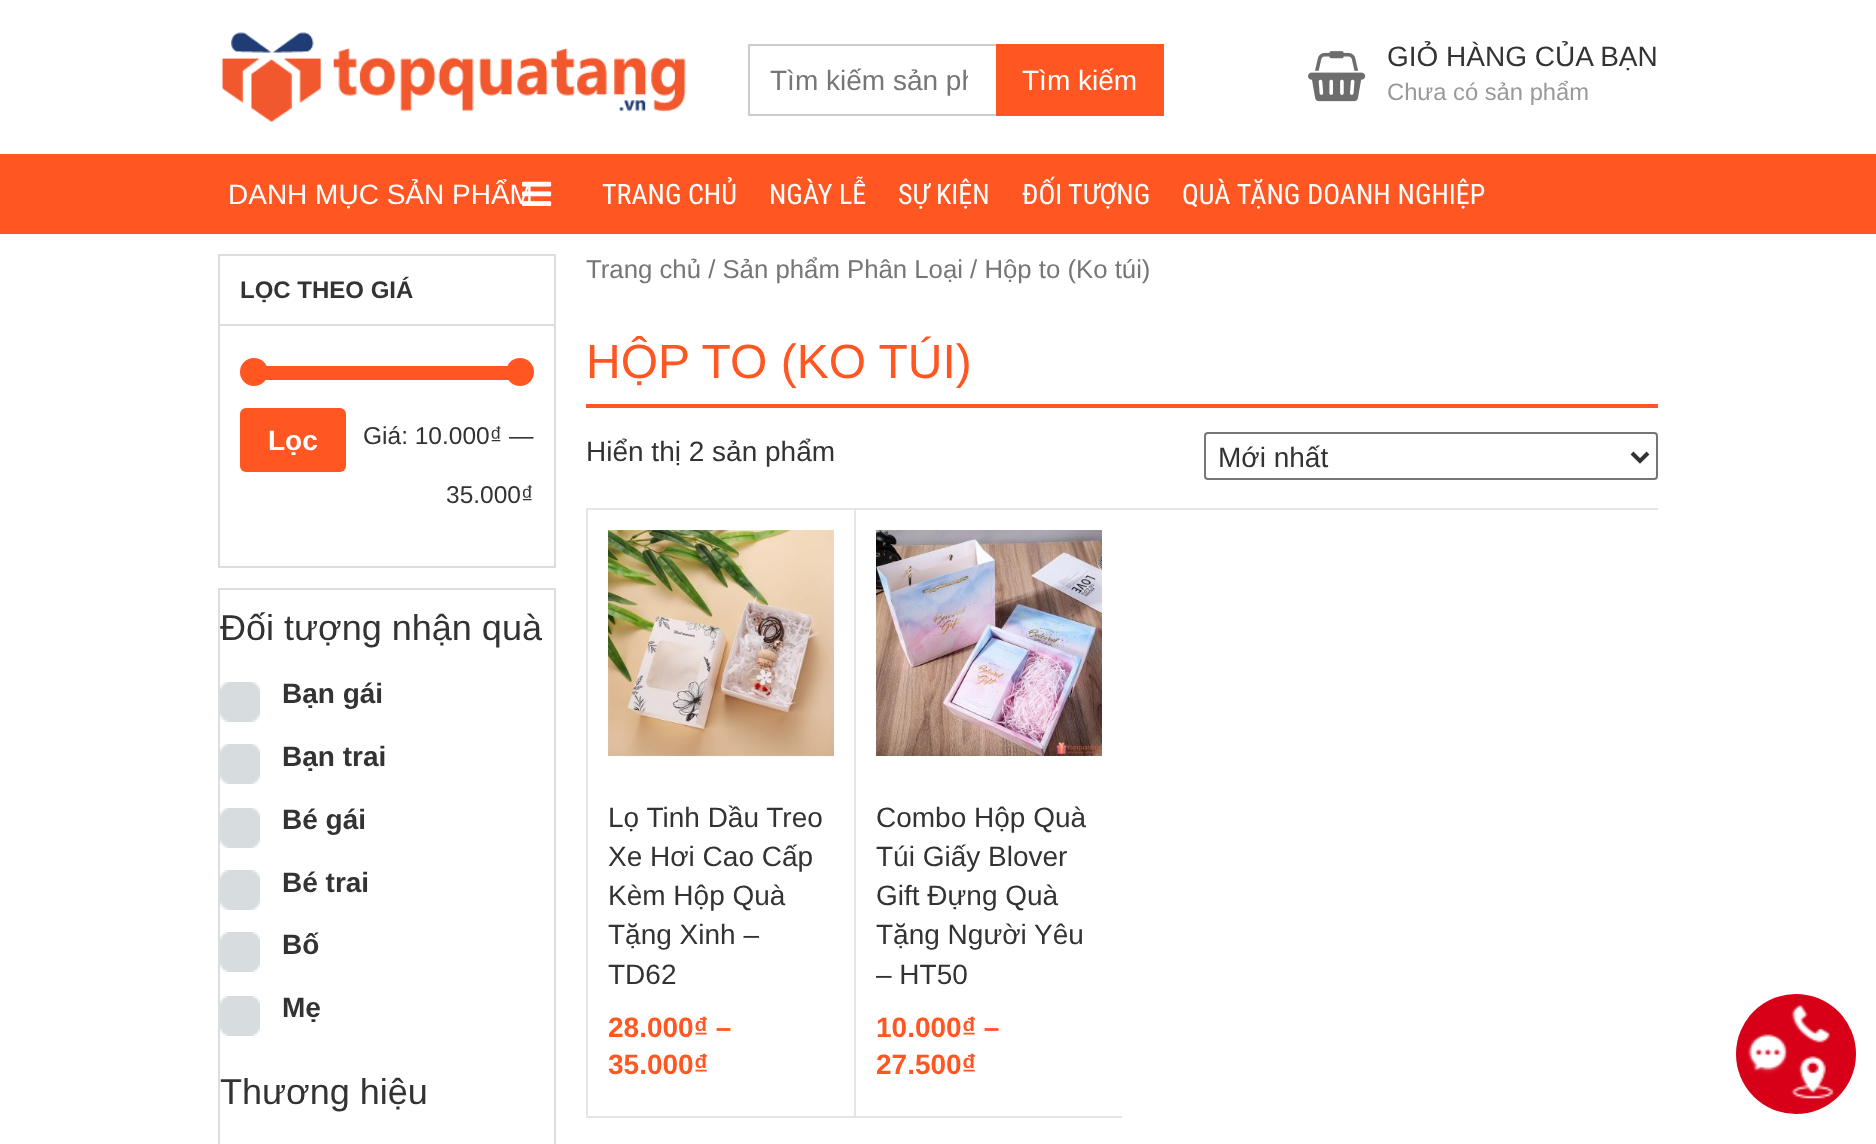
<svg xmlns="http://www.w3.org/2000/svg" width="1876" height="1144">
<style>
.a{font:28px Liberation Sans;fill:#767676}
.b{font:28px Liberation Sans;fill:#fff}
.c{font:28px Liberation Sans;fill:#333}
.d{font:23.75px Liberation Sans;fill:#999}
.e{font:28px Roboto Condensed;fill:#fff}
.f{font:bold 24px Liberation Sans;fill:#333}
.g{font:bold 28px Liberation Sans;fill:#fff}
.h{font:24.5px Liberation Sans;fill:#333}
.i{font:36px Liberation Sans;fill:#333}
.j{font:bold 28px Liberation Sans;fill:#333}
.k{font:25.75px Liberation Sans;fill:#767676}
.l{font:48px Liberation Sans;fill:#ff5622}
.m{font:bold 28px Liberation Sans;fill:#ff5622}
</style>
<defs>
<clipPath id="clip1"><path d="M770 64h198v32H770z"/></clipPath>
</defs>
<rect width="100%" height="100%" fill="#fff"/>
<image href="1.png" x="221" y="32" width="465" height="90"/>
<path fill="#ccc" d="M748 44h248v2H748z"/>
<path fill="#ccc" d="M748 114h248v2H748z"/>
<path fill="#ccc" d="M748 44h2v72H748z"/>
<path fill="#ff5622" d="M996 44h168v72H996z"/>
<image href="2.png" x="1308" y="51" width="58" height="51"/>
<path fill="#ff5622" d="M0 154h1876v80H0z"/>
<path fill="none" stroke="#ddd" stroke-width="2" d="M219 255h336v312H219z"/>
<path fill="#ddd" d="M220 324h334v2H220z"/>
<path fill="#ff5622" d="M265 366h244v14H265z"/>
<circle fill="#ff5622" cx="254" cy="372" r="14"/>
<circle fill="#ff5622" cx="520" cy="372" r="14"/>
<rect fill="#ff5622" x="240" y="408" width="106" height="64" rx="6"/>
<path fill="none" stroke="#ddd" stroke-width="2" d="M219 589h336v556H219z"/>
<image href="4.png" x="220" y="682" width="40" height="40"/>
<image href="4.png" x="220" y="744" width="40" height="40"/>
<image href="4.png" x="220" y="808" width="40" height="40"/>
<image href="4.png" x="220" y="870" width="40" height="40"/>
<image href="4.png" x="220" y="932" width="40" height="40"/>
<image href="4.png" x="220" y="996" width="40" height="40"/>
<path fill="#ff5622" d="M586 404h1072v4H586z"/>
<rect fill="none" stroke="#767676" stroke-width="2" x="1205" y="433" width="452" height="46" rx="3"/>
<path fill="none" stroke="#333" stroke-width="4" d="M1632 453l8 8l8-8"/>
<path fill="#e5e5e5" d="M586 508h1072v2H586z"/>
<path fill="#e5e5e5" d="M586 1116h536v2H586z"/>
<path fill="#e5e5e5" d="M586 510h2v608H586z"/>
<image href="5.png" x="608" y="530" width="226" height="226"/>
<path fill="#e5e5e5" d="M854 510h2v608H854z"/>
<image href="6.png" x="876" y="530" width="226" height="226"/>
<circle fill="#d70018" cx="1796" cy="1054" r="60"/>
<image href="7.png" x="1747" y="1005" width="87" height="94"/>
<g clip-path="url(#clip1)">
<text class="a" x="770" y="90">Tìm kiếm sản ph</text>
</g>
<text class="b" x="1022" y="90">Tìm kiếm</text>
<text class="c" x="1387" y="66">GIỎ HÀNG CỦA BẠN</text>
<text class="d" x="1387" y="100">Chưa có sản phẩm</text>
<text class="b" x="228" y="204">DANH MỤC SẢN PHẨM</text>
<image href="3.png" x="522" y="181" width="30" height="25"/>
<text class="e" x="602" y="204">TRANG CHỦ</text>
<text class="e" x="769" y="204">NGÀY LỄ</text>
<text class="e" x="898" y="204">SỰ KIỆN</text>
<text class="e" x="1022" y="204">ĐỐI TƯỢNG</text>
<text class="e" x="1182" y="204" word-spacing="0.5">QUÀ TẶNG DOANH NGHIỆP</text>
<text class="f" x="240" y="298">LỌC THEO GIÁ</text>
<text class="g" x="268" y="450">Lọc</text>
<text class="h" x="363" y="444">Giá: 10.000₫ —</text>
<text class="h" x="446" y="503">35.000₫</text>
<text class="i" x="220" y="640">Đối tượng nhận quà</text>
<text class="j" x="282" y="703">Bạn gái</text>
<text class="j" x="282" y="766">Bạn trai</text>
<text class="j" x="282" y="829">Bé gái</text>
<text class="j" x="282" y="892">Bé trai</text>
<text class="j" x="282" y="954">Bố</text>
<text class="j" x="282" y="1017">Mẹ</text>
<text class="i" x="220" y="1104">Thương hiệu</text>
<text class="k" x="586" y="278">Trang chủ / Sản phẩm Phân Loại / Hộp to (Ko túi)</text>
<text class="l" x="586" y="378">HỘP TO (KO TÚI)</text>
<text class="c" x="586" y="461">Hiển thị 2 sản phẩm</text>
<text class="c" x="1218" y="467">Mới nhất</text>
<text class="c" x="608" y="827">Lọ Tinh Dầu Treo</text>
<text class="c" x="608" y="866">Xe Hơi Cao Cấp</text>
<text class="c" x="608" y="905">Kèm Hộp Quà</text>
<text class="c" x="608" y="944">Tặng Xinh –</text>
<text class="c" x="608" y="984">TD62</text>
<text class="m" x="608" y="1037">28.000₫ –</text>
<text class="m" x="608" y="1074">35.000₫</text>
<text class="c" x="876" y="827">Combo Hộp Quà</text>
<text class="c" x="876" y="866">Túi Giấy Blover</text>
<text class="c" x="876" y="905">Gift Đựng Quà</text>
<text class="c" x="876" y="944">Tặng Người Yêu</text>
<text class="c" x="876" y="984">– HT50</text>
<text class="m" x="876" y="1037">10.000₫ –</text>
<text class="m" x="876" y="1074">27.500₫</text>
</svg>
